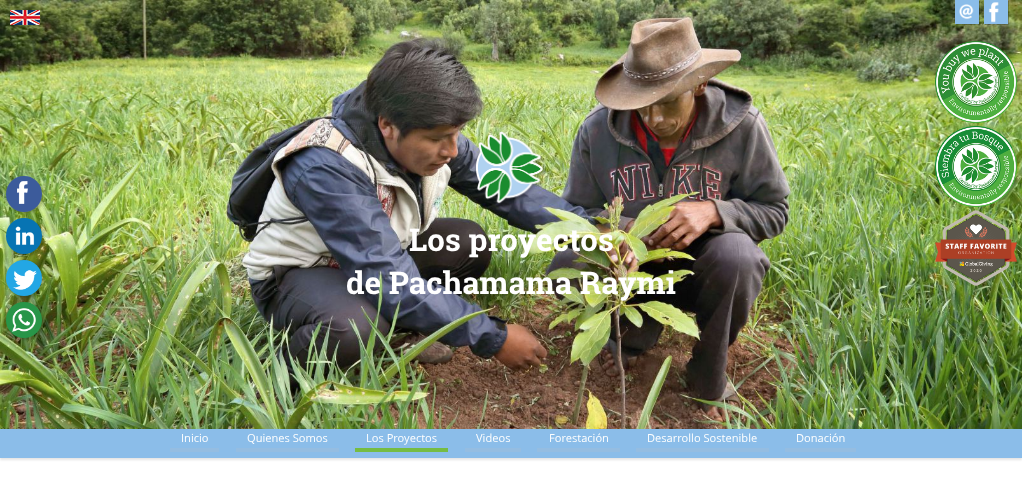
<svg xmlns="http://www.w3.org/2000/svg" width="1022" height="484">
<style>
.a{font:bold 31.25px Roboto Slab;fill:#fff}
.b{font:11.1px Open Sans;fill:#fff}
</style>
<rect width="100%" height="100%" fill="#fff"/>
<image href="8.png" x="0" y="0" width="1022" height="429"/>
<rect fill="#00000033" filter="blur(1px)" x="8" y="178" width="36" height="36" rx="18"/>
<circle fill="#3c5b9b" cx="24" cy="194" r="18"/>
<image href="1.png" x="17" y="181" width="11" height="23"/>
<rect fill="#00000033" filter="blur(1px)" x="8" y="220" width="36" height="36" rx="18"/>
<circle fill="#0774b3" cx="24" cy="236" r="18"/>
<image href="2.png" x="15" y="226" width="20" height="19"/>
<rect fill="#00000033" filter="blur(1px)" x="8" y="262" width="36" height="36" rx="18"/>
<circle fill="#23a7e5" cx="24" cy="278" r="18"/>
<image href="3.png" x="12" y="270" width="25" height="20"/>
<rect fill="#00000033" filter="blur(1px)" x="8" y="304" width="36" height="36" rx="18"/>
<circle fill="#289548" cx="24" cy="320" r="18"/>
<image href="4.png" x="12" y="308" width="24" height="24"/>
<image href="5.png" x="10" y="10" width="30" height="15"/>
<path fill="#00000033" filter="blur(0.5px)" d="M956 1h24v24H956z"/>
<path fill="#8bbde9" d="M955 0h24v24H955z"/>
<image href="6.png" x="959" y="4" width="15" height="16"/>
<path fill="#00000033" filter="blur(0.5px)" d="M985 1h24v24H985z"/>
<path fill="#8bbde9" d="M984 0h24v24H984z"/>
<image href="7.png" x="988" y="2" width="11" height="21"/>
<image href="9.png" x="475" y="131" width="72" height="73"/>
<path fill="#0000001a" filter="blur(1px)" d="M0 431h1022v29H0z"/>
<path fill="#8bbde9" d="M0 429h1022v29H0z"/>
<path fill="#95bde1" d="M170 448h49v4H170z"/>
<path fill="#95bde1" d="M236 448h103v4H236z"/>
<path fill="#76bc42" d="M355 448h93v4H355z"/>
<path fill="#95bde1" d="M465 448h56v4H465z"/>
<path fill="#95bde1" d="M537 448h83v4H537z"/>
<path fill="#95bde1" d="M636 448h133v4H636z"/>
<path fill="#95bde1" d="M785 448h71v4H785z"/>
<image href="10.png" x="935" y="41" width="82" height="82"/>
<image href="11.png" x="935" y="126" width="82" height="81"/>
<image href="12.png" x="935" y="210" width="82" height="76"/>
<text class="a" x="409" y="251">Los proyectos</text>
<text class="a" x="346" y="294">de Pachamama Raymi</text>
<text class="b" x="181" y="442">Inicio</text>
<text class="b" x="247" y="442">Quienes Somos</text>
<text class="b" x="366" y="442">Los Proyectos</text>
<text class="b" x="476" y="442">Videos</text>
<text class="b" x="549" y="442">Forestación</text>
<text class="b" x="647" y="442">Desarrollo Sostenible</text>
<text class="b" x="796" y="442">Donación</text>
</svg>
